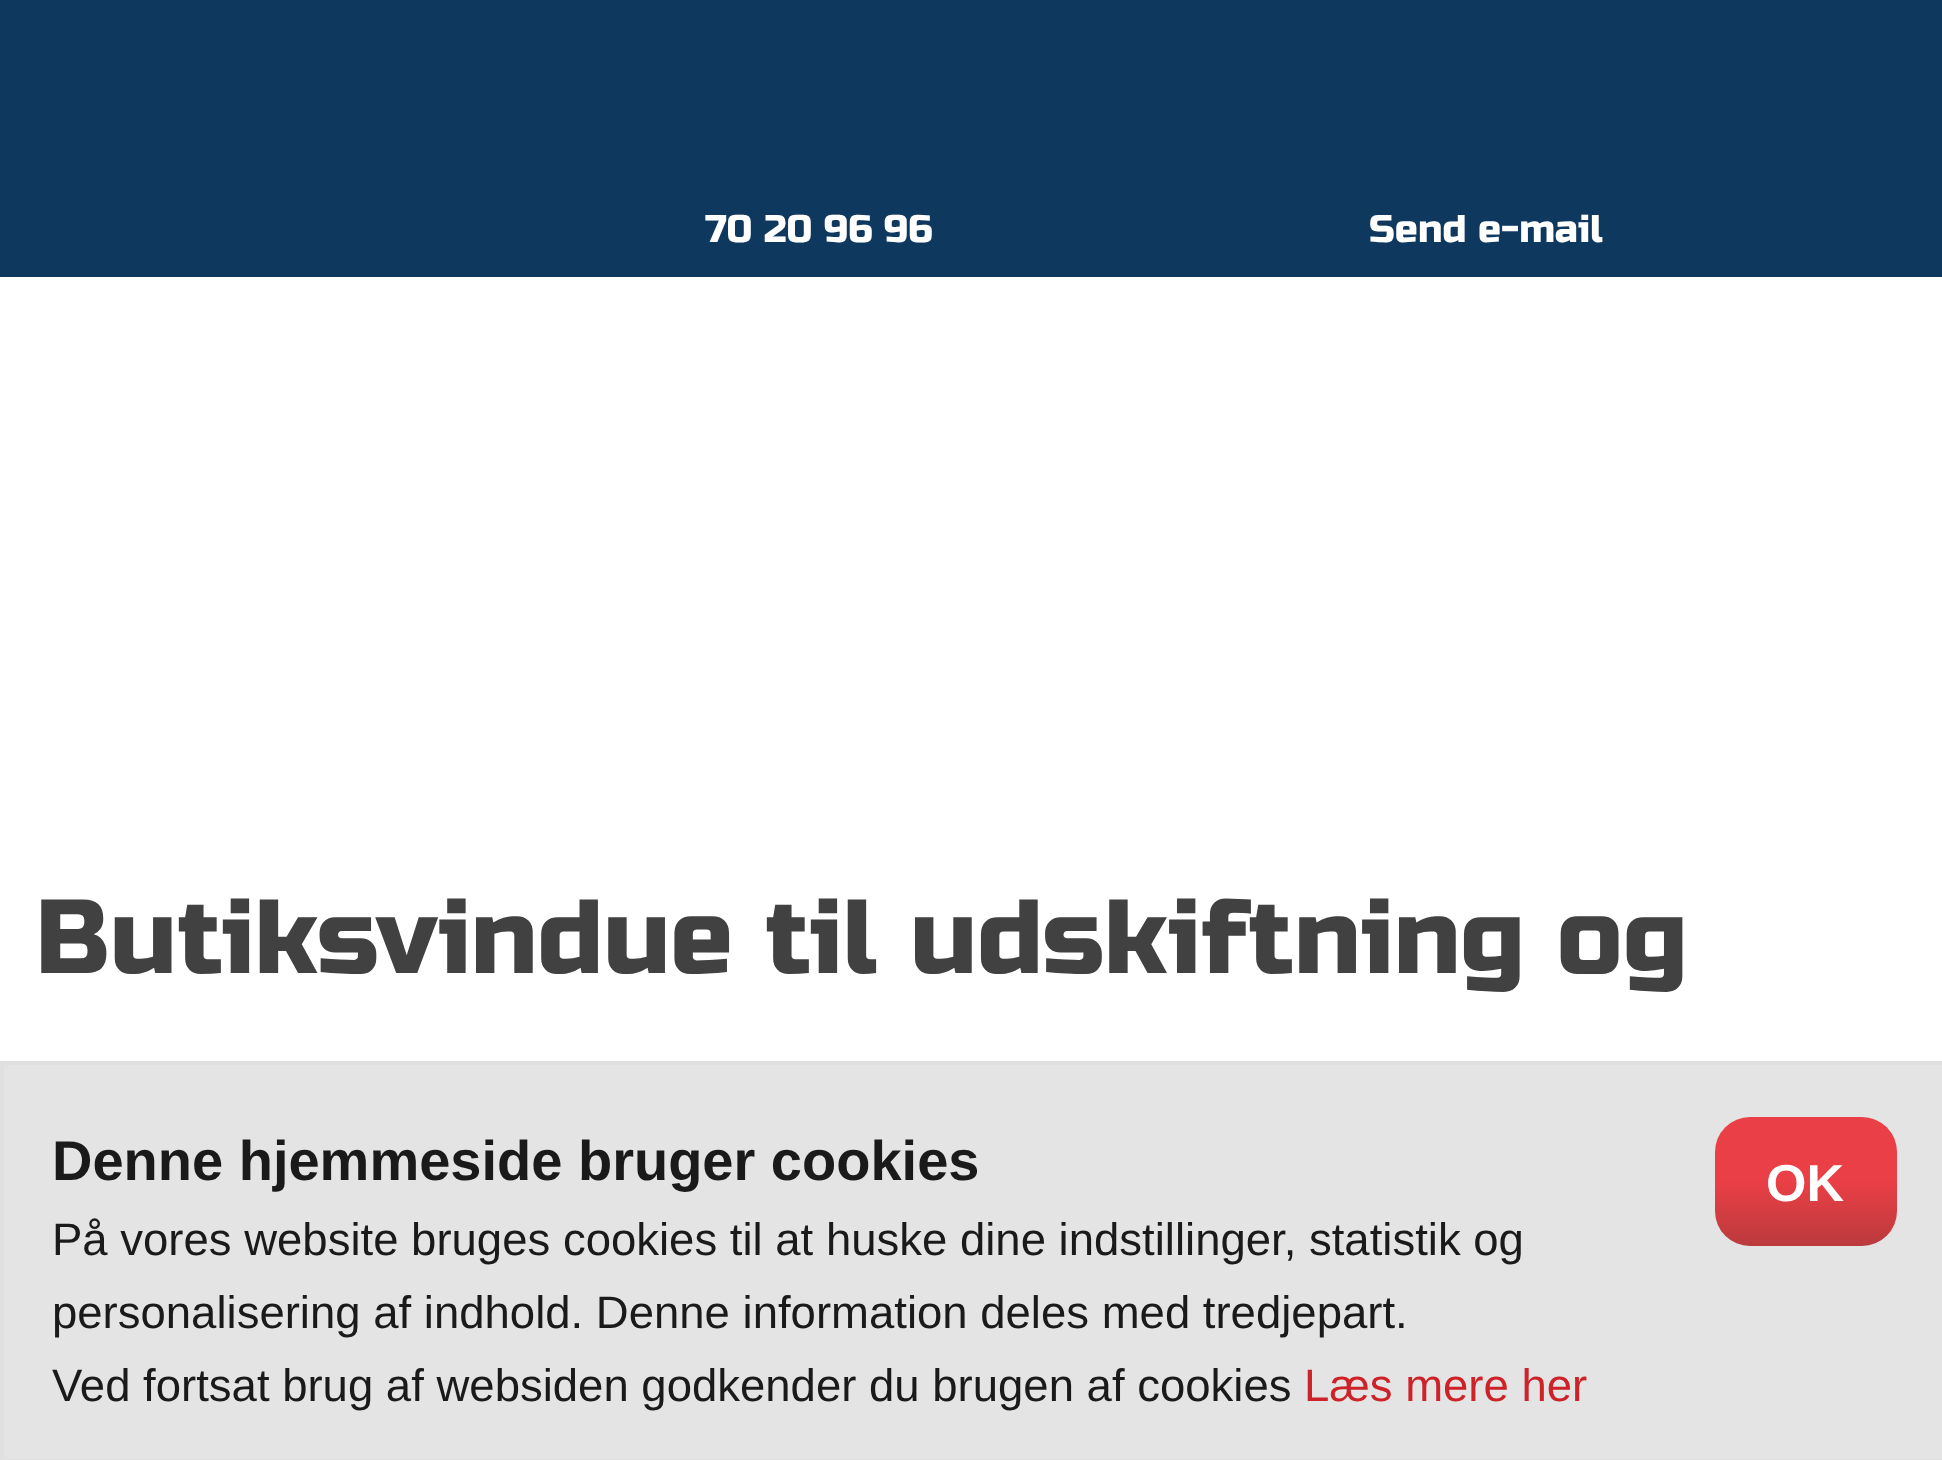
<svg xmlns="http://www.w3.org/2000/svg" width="1942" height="1460">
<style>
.a{font:38.5px Russo One;fill:#fff}
.b{font:105px Russo One;fill:#414141}
.c{font:bold 56px Liberation Sans;fill:#1a1a1a}
.d{font:45.5px Liberation Sans;fill:#1a1a1a}
.e{font:45.5px Liberation Sans;fill:#cd2228}
.f{font:bold 52px Liberation Sans;fill:#fff}
</style>
<defs>
<linearGradient id="g1" gradientUnits="userSpaceOnUse" x1="1806" y1="1117" x2="1806" y2="1246"><stop offset="0" stop-color="#ea2d34" stop-opacity="0.9"/><stop offset="0.5" stop-color="#ea2d34" stop-opacity="0.9"/><stop offset="1" stop-color="#b6272b" stop-opacity="0.9"/></linearGradient>
</defs>
<rect width="100%" height="100%" fill="#fff"/>
<path fill="#0e385e" d="M0 0h1942v277H0z"/>
<path fill="#e1e1e1e6" d="M0 1061h1942v399H0z"/>
<path fill="none" stroke="#dfdfdfe6" stroke-width="4" d="M2 1063h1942v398H2z"/>
<rect fill="url(#g1)" x="1715" y="1117" width="182" height="129" rx="35"/>
<text class="a" x="705" y="242">70 20 96 96</text>
<text class="a" x="1369" y="242">Send e-mail</text>
<text class="b" x="35" y="973">Butiksvindue til udskiftning og</text>
<text class="c" x="52" y="1180">Denne hjemmeside bruger cookies</text>
<text class="d" x="52" y="1255">På vores website bruges cookies til at huske dine indstillinger, statistik og</text>
<text class="d" x="52" y="1328">personalisering af indhold. Denne information deles med tredjepart.</text>
<text class="d" x="52" y="1401">Ved fortsat brug af websiden godkender du brugen af cookies</text>
<text class="e" x="1304" y="1401">Læs mere her</text>
<text class="f" x="1766" y="1201">OK</text>
</svg>
